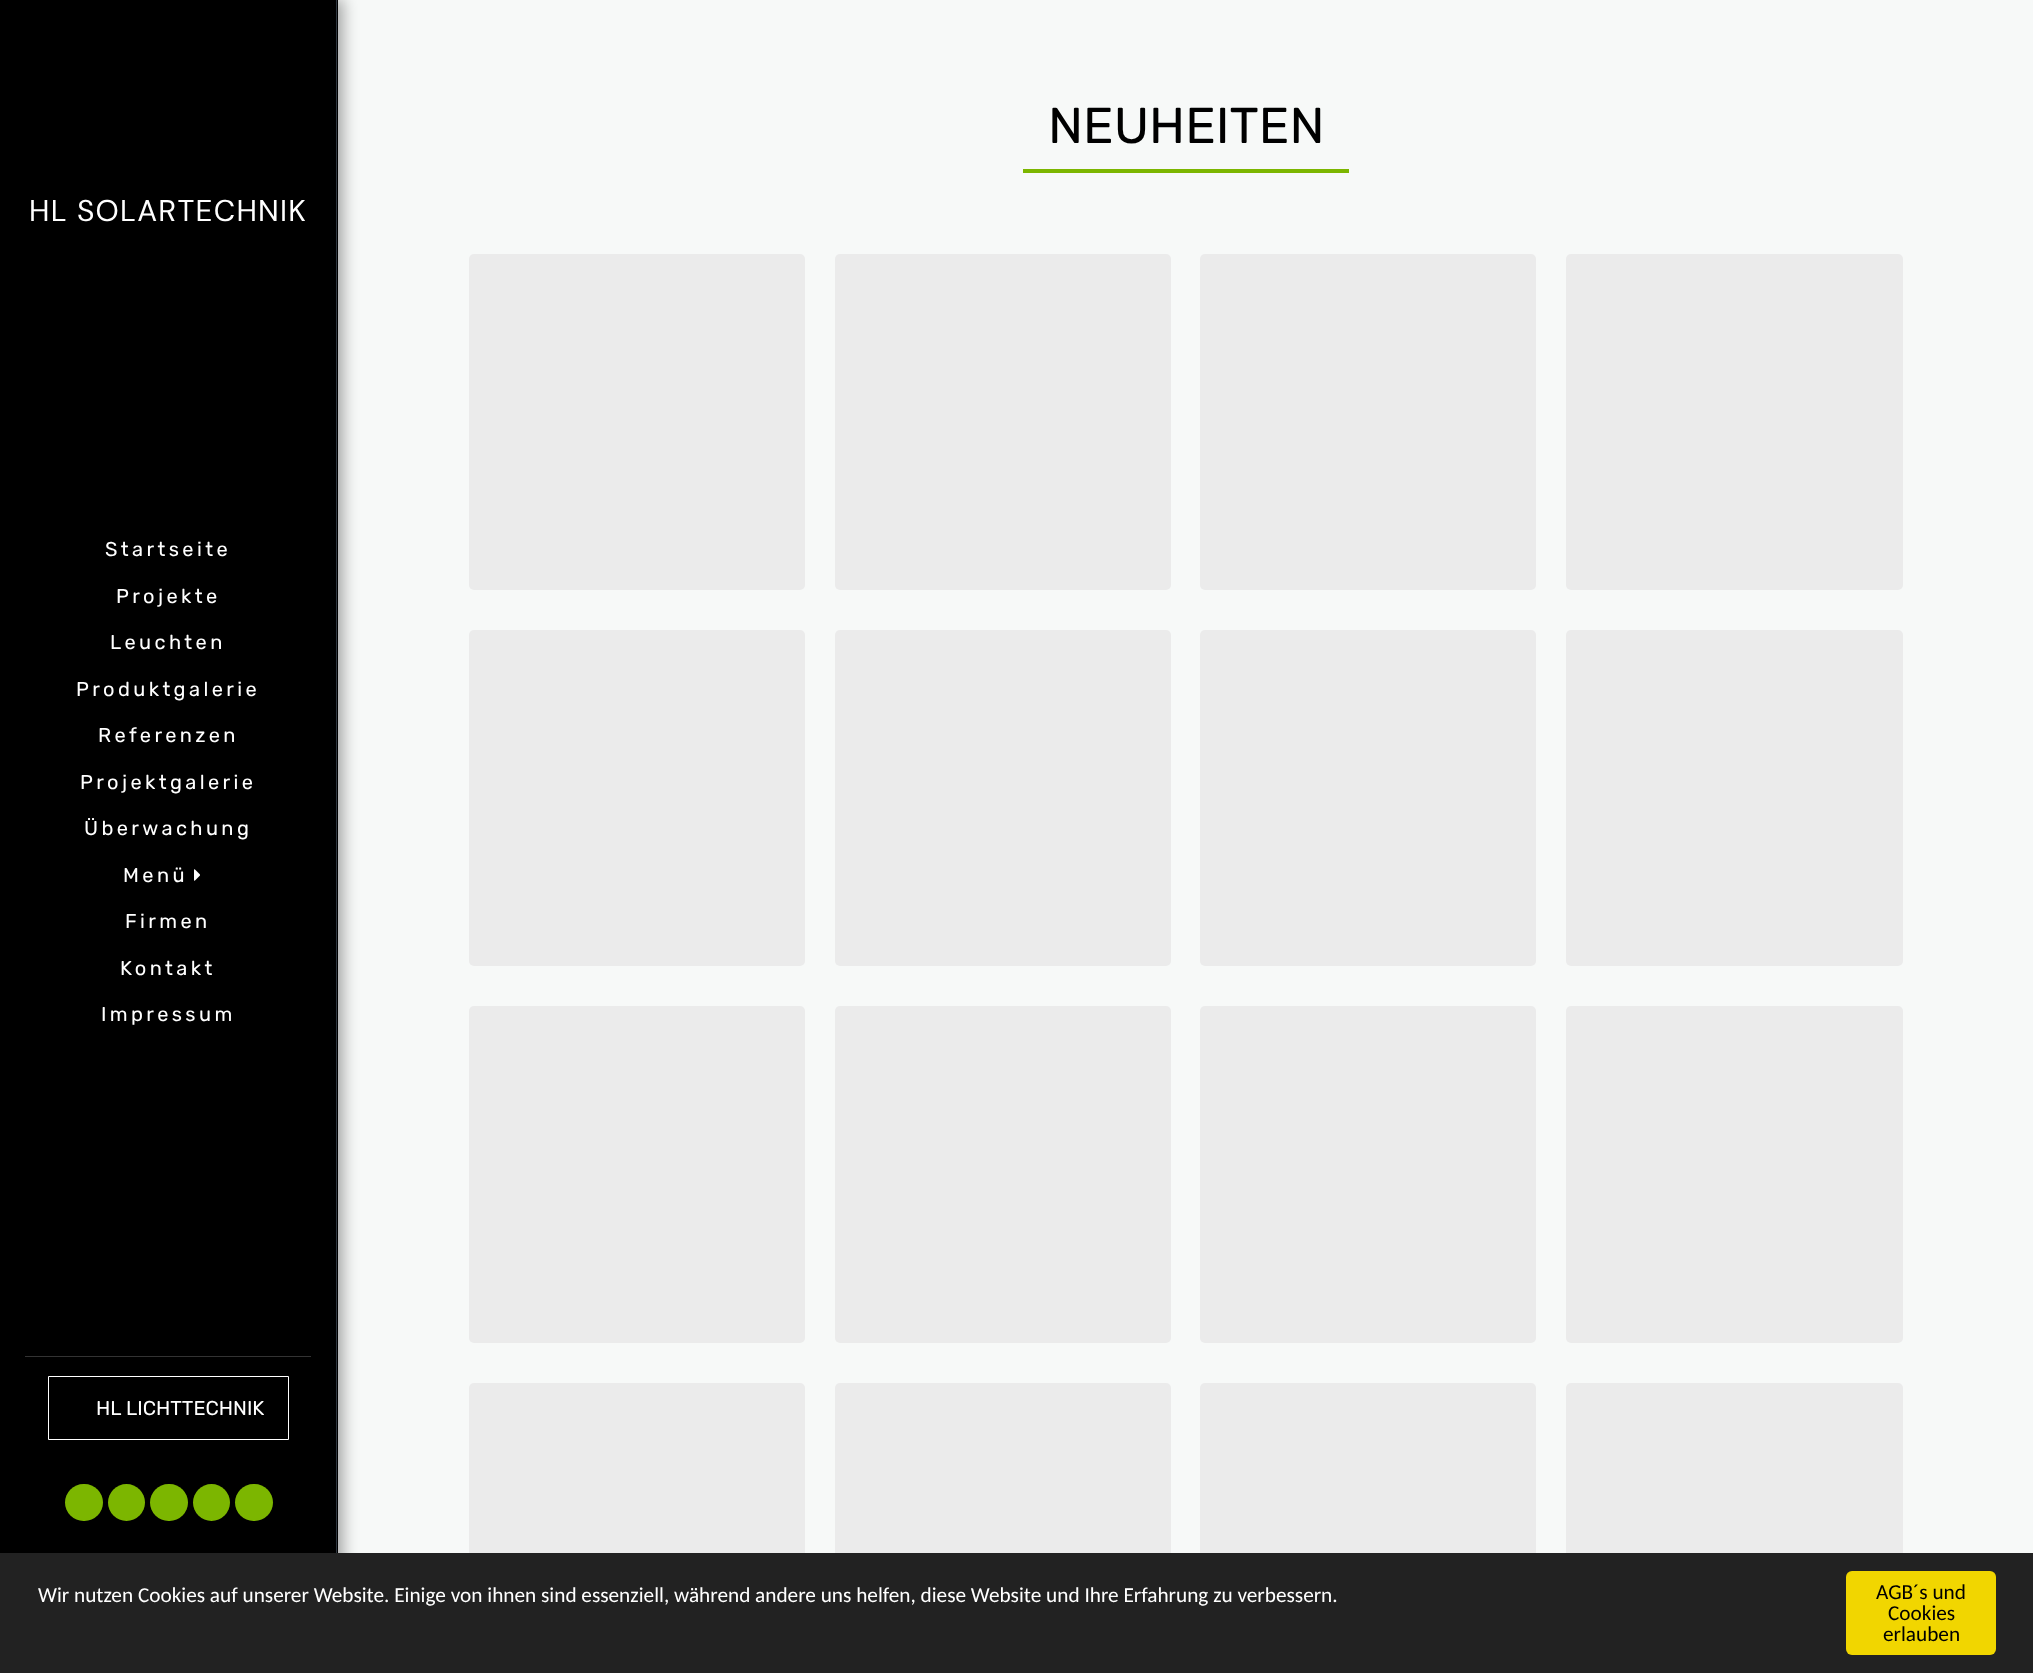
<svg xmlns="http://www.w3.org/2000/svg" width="2033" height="1673">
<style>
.a{font:50.5px Rubik;fill:#000}
.b{font:30px DM Sans;letter-spacing:1.25px;fill:#fff}
.c{font:20px Rubik;letter-spacing:3.4px;fill:#fff}
.d{font:20px Rubik;fill:#fff}
.e{font:21.25px Carlito;fill:#fff}
.f{font:21.25px Carlito;fill:#000}
</style>
<rect width="100%" height="100%" fill="#f7f9f8"/>
<path fill="#7cb600" d="M1023 169h326v4H1023z"/>
<rect fill="#ebebeb" x="469" y="254" width="336" height="336" rx="5"/>
<rect fill="#ebebeb" x="835" y="254" width="336" height="336" rx="5"/>
<rect fill="#ebebeb" x="1200" y="254" width="336" height="336" rx="5"/>
<rect fill="#ebebeb" x="1566" y="254" width="337" height="336" rx="5"/>
<rect fill="#ebebeb" x="469" y="630" width="336" height="336" rx="5"/>
<rect fill="#ebebeb" x="835" y="630" width="336" height="336" rx="5"/>
<rect fill="#ebebeb" x="1200" y="630" width="336" height="336" rx="5"/>
<rect fill="#ebebeb" x="1566" y="630" width="337" height="336" rx="5"/>
<rect fill="#ebebeb" x="469" y="1006" width="336" height="337" rx="5"/>
<rect fill="#ebebeb" x="835" y="1006" width="336" height="337" rx="5"/>
<rect fill="#ebebeb" x="1200" y="1006" width="336" height="337" rx="5"/>
<rect fill="#ebebeb" x="1566" y="1006" width="337" height="337" rx="5"/>
<rect fill="#ebebeb" x="469" y="1383" width="336" height="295" rx="5"/>
<rect fill="#ebebeb" x="835" y="1383" width="336" height="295" rx="5"/>
<rect fill="#ebebeb" x="1200" y="1383" width="336" height="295" rx="5"/>
<rect fill="#ebebeb" x="1566" y="1383" width="337" height="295" rx="5"/>
<path fill="#00000059" filter="blur(7.5px)" d="M0 -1h343v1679H0z"/>
<path fill="#000" d="M0 0h338v1553H0z"/>
<path fill="#303841" d="M336 0h1v1553H336z"/>
<image href="1.png" x="194" y="869" width="6" height="12"/>
<path fill="#333" d="M25 1356h286v1H25z"/>
<path fill="none" stroke="#fff" d="M48.5 1376.5h240v63H48.5z"/>
<rect fill="#7cb600" x="65" y="1484" width="38" height="37" rx="18.5"/>
<circle fill="#7cb600" cx="126.5" cy="1502.5" r="18.5"/>
<rect fill="#7cb600" x="150" y="1484" width="38" height="37" rx="18.5"/>
<circle fill="#7cb600" cx="211.5" cy="1502.5" r="18.5"/>
<rect fill="#7cb600" x="235" y="1484" width="38" height="37" rx="18.5"/>
<path fill="#222" d="M0 1553h2033v120H0z"/>
<rect fill="#f1d600" x="1846" y="1571" width="150" height="84" rx="6"/>
<text class="a" x="1048" y="143">NEUHEITEN</text>
<text class="b" x="29" y="221">HL SOLARTECHNIK</text>
<text class="c" x="105" y="556">Startseite</text>
<text class="c" x="116" y="603">Projekte</text>
<text class="c" x="110" y="649">Leuchten</text>
<text class="c" x="76" y="696">Produktgalerie</text>
<text class="c" x="98" y="742">Referenzen</text>
<text class="c" x="80" y="789">Projektgalerie</text>
<text class="c" x="84" y="835">Überwachung</text>
<text class="c" x="123" y="882">Menü</text>
<text class="c" x="125" y="928">Firmen</text>
<text class="c" x="120" y="975">Kontakt</text>
<text class="c" x="101" y="1021">Impressum</text>
<text class="d" x="96" y="1415">HL LICHTTECHNIK</text>
<text class="e" x="38" y="1602">Wir nutzen Cookies auf unserer Website. Einige von ihnen sind essenziell, während andere uns helfen, diese Website und Ihre Erfahrung zu verbessern.</text>
<text class="f" x="1876" y="1599">AGB´s und</text>
<text class="f" x="1888" y="1620">Cookies</text>
<text class="f" x="1883" y="1641">erlauben</text>
</svg>
